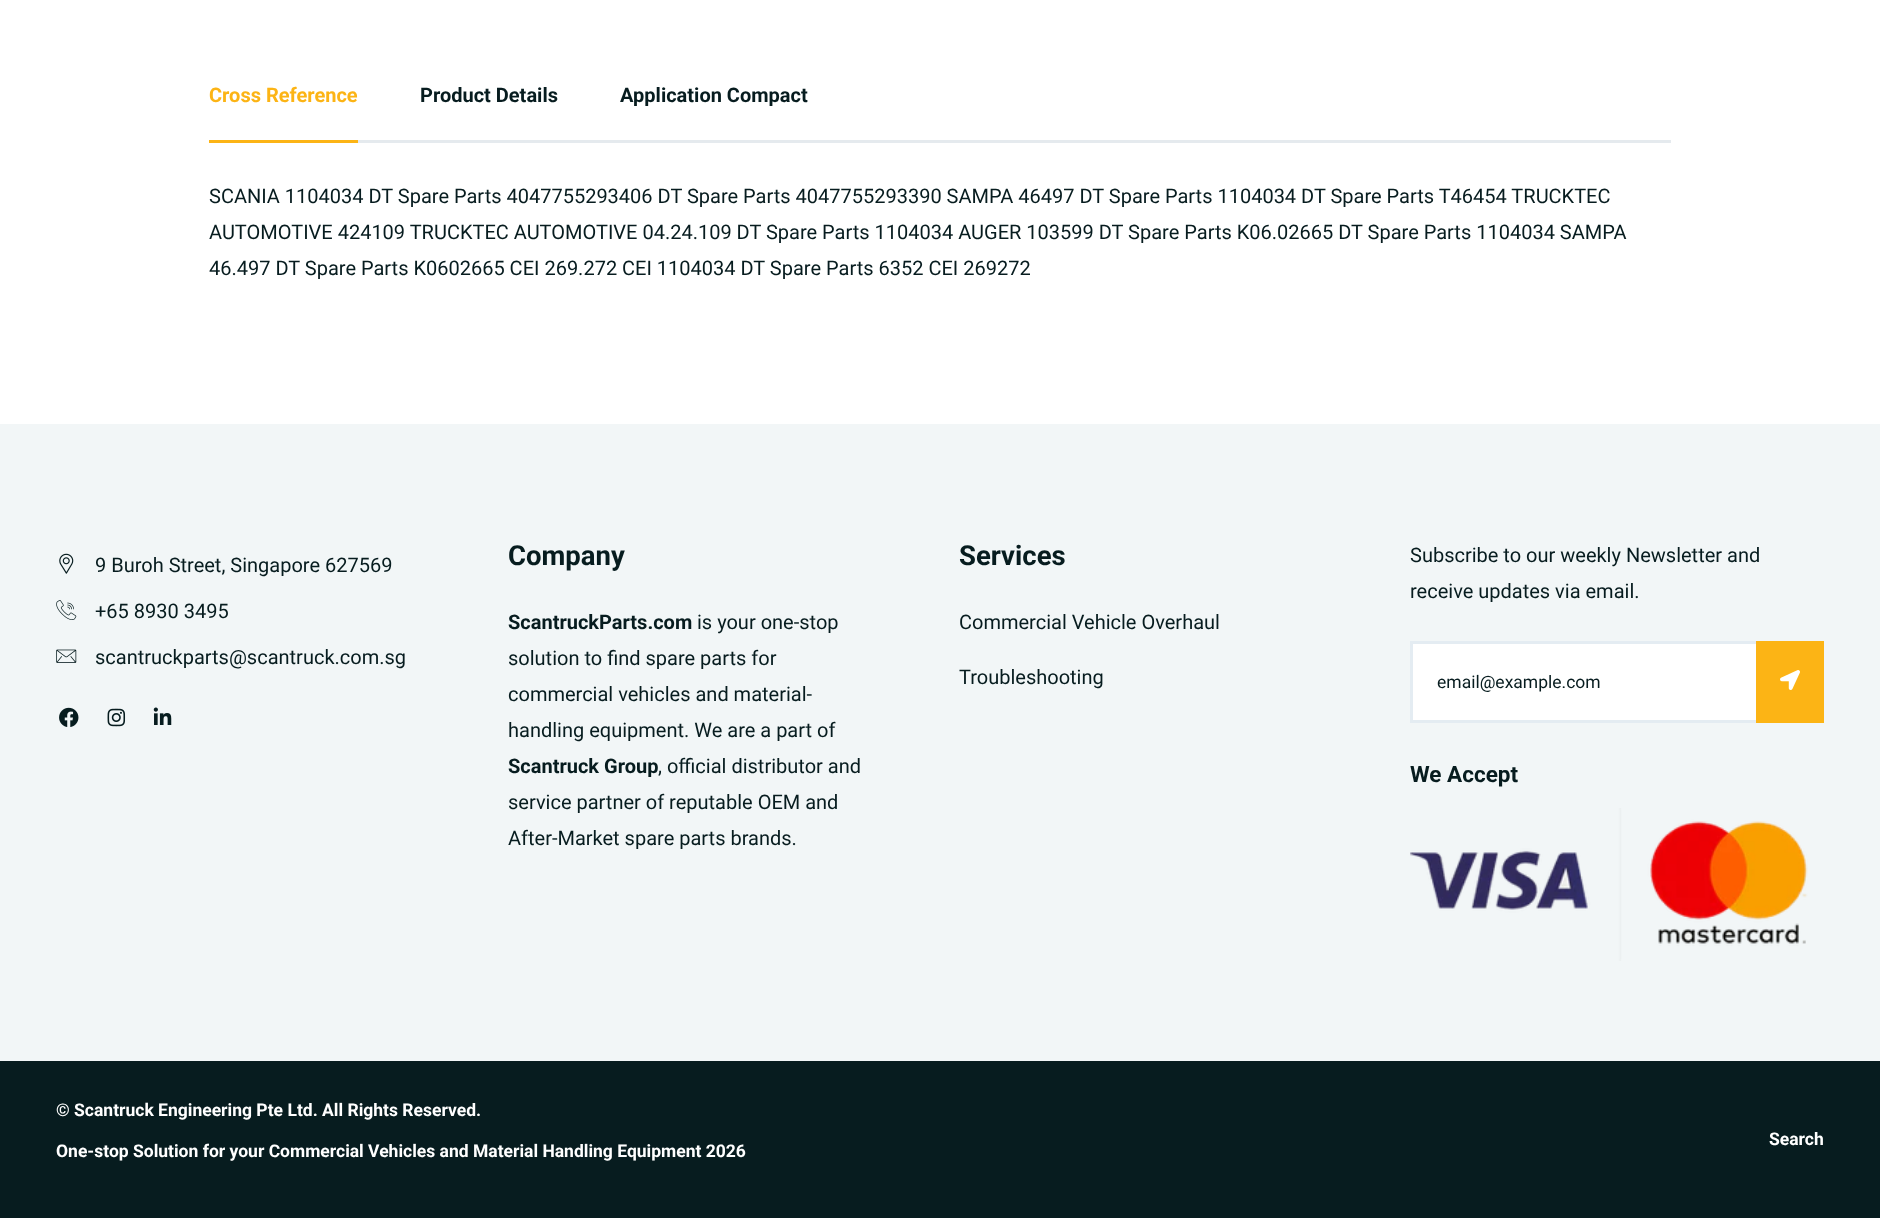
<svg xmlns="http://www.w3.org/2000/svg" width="1880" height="1218">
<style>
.a{font:bold 20px Roboto;fill:#fcb415}
.b{font:bold 20px Roboto;fill:#071c1f}
.c{font:20px Roboto;fill:#071c1f}
.d{font:bold 27.5px Roboto;fill:#071c1f}
.e{font:17.5px Roboto;fill:#071c1f}
.f{font:bold 22.5px Roboto;fill:#071c1f}
.g{font:bold 17.5px Roboto;fill:#fff}
</style>
<rect width="100%" height="100%" fill="#fff"/>
<path fill="#e5eaee" d="M358 140h1313v3H358z"/>
<path fill="#fcb415" d="M209 140h149v3H209z"/>
<path fill="#f2f6f7" d="M0 424h1880v637H0z"/>
<image href="1.png" x="59" y="553" width="15" height="21"/>
<image href="2.png" x="56" y="600" width="21" height="20"/>
<image href="3.png" x="56" y="649" width="21" height="14"/>
<image href="4.png" x="59" y="707" width="20" height="20"/>
<image href="5.png" x="107" y="708" width="19" height="19"/>
<image href="6.png" x="153" y="707" width="19" height="18"/>
<path fill="#fff" d="M1413 644h343v76H1413z"/>
<path fill="none" stroke="#e4ecf2" stroke-width="3" d="M1411.5 642.5h411v79H1411.5z"/>
<path fill="#fcb415" d="M1756 641h68v82H1756z"/>
<image href="7.png" x="1780" y="670" width="20" height="20"/>
<image href="8.png" x="1410" y="808" width="398" height="153"/>
<path fill="#071c1f" d="M0 1061h1880v157H0z"/>
<text class="a" x="209" y="102">Cross Reference</text>
<text class="b" x="420" y="102">Product Details</text>
<text class="b" x="620" y="102">Application Compact</text>
<text class="c" x="209" y="203">SCANIA 1104034 DT Spare Parts 4047755293406 DT Spare Parts 4047755293390 SAMPA 46497 DT Spare Parts 1104034 DT Spare Parts T46454 TRUCKTEC</text>
<text class="c" x="209" y="239">AUTOMOTIVE 424109 TRUCKTEC AUTOMOTIVE 04.24.109 DT Spare Parts 1104034 AUGER 103599 DT Spare Parts K06.02665 DT Spare Parts 1104034 SAMPA</text>
<text class="c" x="209" y="275">46.497 DT Spare Parts K0602665 CEI 269.272 CEI 1104034 DT Spare Parts 6352 CEI 269272</text>
<text class="c" x="95" y="572">9 Buroh Street, Singapore 627569</text>
<text class="c" x="95" y="618">+65 8930 3495</text>
<text class="c" x="95" y="664">scantruckparts@scantruck.com.sg</text>
<text class="d" x="508" y="565">Company</text>
<text class="b" x="508" y="629">ScantruckParts.com</text>
<text class="c" x="697" y="629">is your one-stop</text>
<text class="c" x="508" y="665">solution to find spare parts for</text>
<text class="c" x="508" y="701">commercial vehicles and material-</text>
<text class="c" x="508" y="737">handling equipment. We are a part of</text>
<text class="b" x="508" y="773">Scantruck Group</text>
<text class="c" x="658" y="773">, official distributor and</text>
<text class="c" x="508" y="809">service partner of reputable OEM and</text>
<text class="c" x="508" y="845">After-Market spare parts brands.</text>
<text class="d" x="959" y="565">Services</text>
<text class="c" x="959" y="629">Commercial Vehicle Overhaul</text>
<text class="c" x="959" y="684">Troubleshooting</text>
<text class="c" x="1410" y="562">Subscribe to our weekly Newsletter and</text>
<text class="c" x="1410" y="598">receive updates via email.</text>
<text class="e" x="1437" y="688">email@example.com</text>
<text class="f" x="1410" y="782">We Accept</text>
<text class="g" x="56" y="1116">© Scantruck Engineering Pte Ltd. All Rights Reserved.</text>
<text class="g" x="56" y="1157">One-stop Solution for your Commercial Vehicles and Material Handling Equipment 2026</text>
<text class="g" x="1769" y="1145">Search</text>
</svg>
